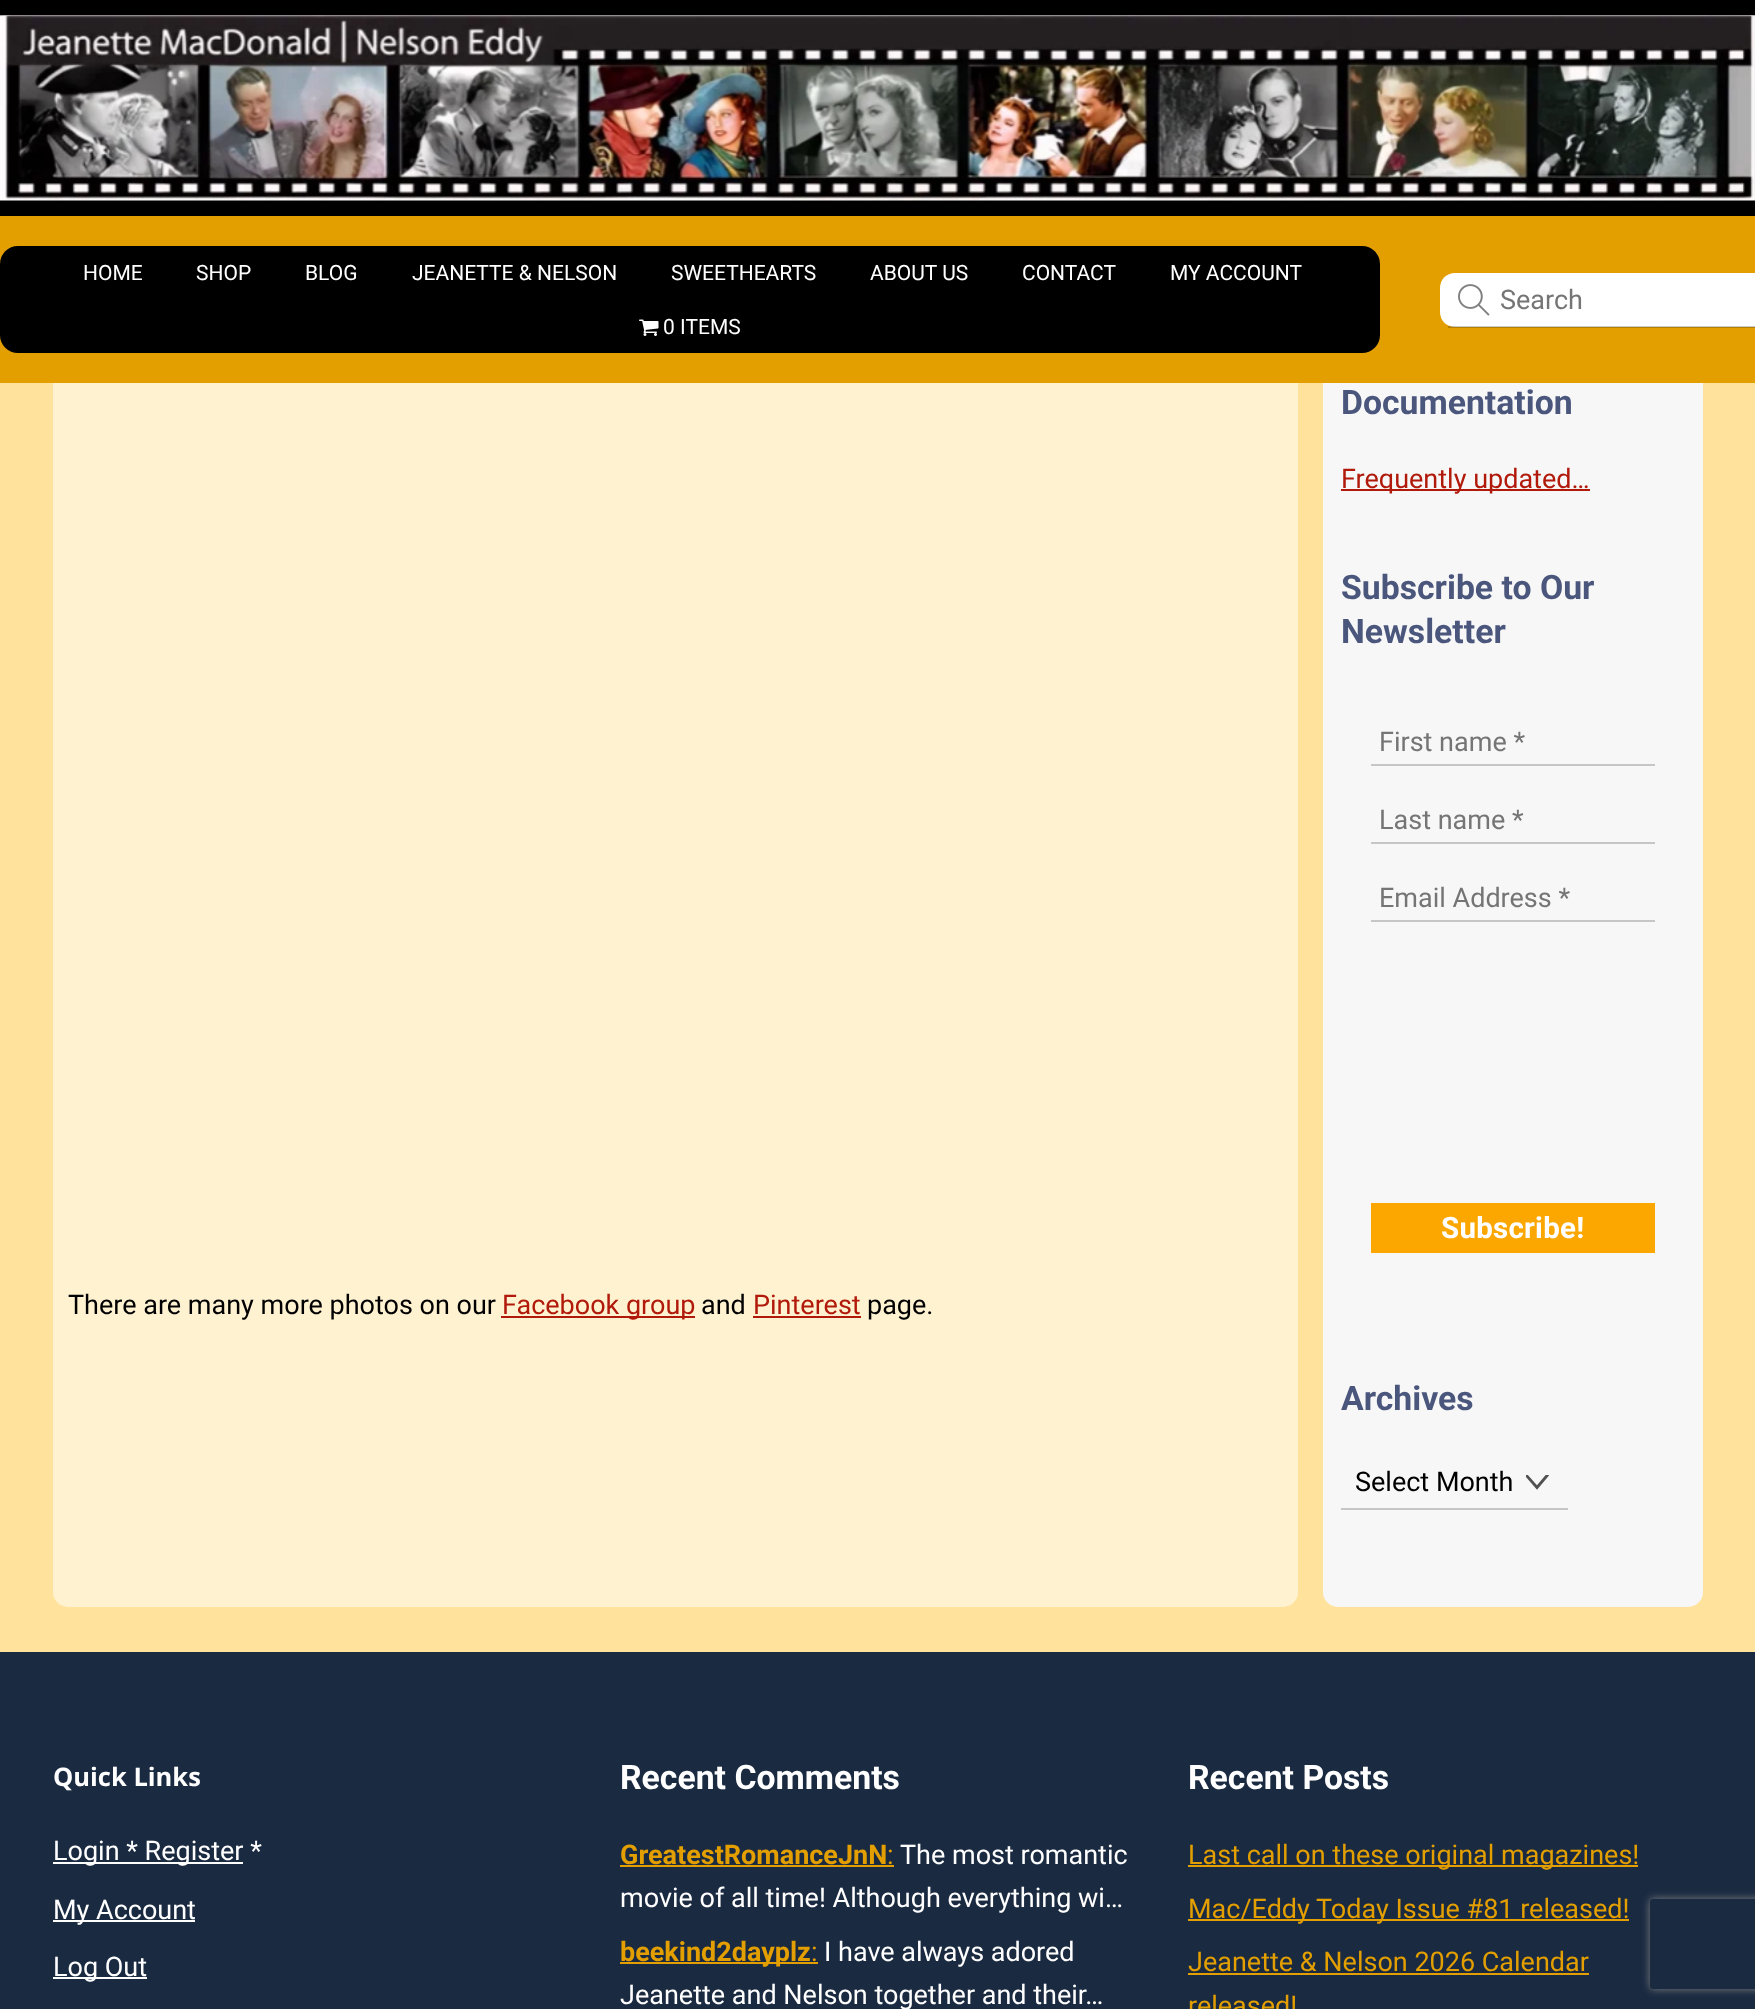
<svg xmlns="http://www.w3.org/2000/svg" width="1755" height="2009">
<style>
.a{font:21px Roboto;fill:#fff}
.b{font:27px Roboto;fill:#757575}
.c{font:27px Roboto;fill:#000}
.d{font:27px Roboto;fill:#b1190a}
.e{font:bold 33.75px Roboto;fill:#4b567d}
.f{font:bold 29.5px Roboto;letter-spacing:0.25px;fill:#fff}
.g{font:bold 25.5px Open Sans;fill:#fff}
.h{font:27px Roboto;fill:#fff}
.i{font:bold 33.75px Roboto;fill:#fff}
.j{font:bold 27px Roboto;fill:#e39f00}
.k{font:27px Roboto;fill:#e39f00}
</style>
<defs>
<clipPath id="clip1"><path d="M1526 1475h24v22H1526z"/></clipPath>
<clipPath id="clip2"><path d="M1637 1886h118v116h-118zm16 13h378c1.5 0 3 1.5 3 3v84c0 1.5-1.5 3-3 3h-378c-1.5 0-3-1.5-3-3v-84c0-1.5 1.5-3 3-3z" clip-rule="evenodd"/></clipPath>
</defs>
<rect width="100%" height="100%" fill="#ffe39c"/>
<rect fill="#fff2d1" x="53" y="-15" width="1245" height="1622" rx="15"/>
<rect fill="#f7f7f7" x="1323" y="-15" width="380" height="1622" rx="15"/>
<path fill="#000" d="M0 0h1755v216H0z"/>
<image href="1.png" x="0" y="15" width="1755" height="186"/>
<path fill="#e39f00" d="M0 216h1755v167H0z"/>
<rect fill="#000" y="246" width="1380" height="107" rx="18"/>
<image href="2.png" x="639" y="319" width="20" height="17"/>
<path fill="#fff" d="M1455 273h300v54h-300c-8.5 0-15-6.5-15-15v-24c0-8.5 6.5-15 15-15z"/>
<image href="3.png" x="1458" y="284" width="32" height="32"/>
<path fill="#00000033" d="M1448 326h307v2H1448z"/>
<path fill="#b1190a" d="M501 1316h194v2H501z"/>
<path fill="#b1190a" d="M753 1316h108v2H753z"/>
<path fill="#b1190a" d="M1341 489h249v2H1341z"/>
<path fill="#c6c6c6" d="M1371 764h284v2H1371z"/>
<path fill="#c6c6c6" d="M1371 842h284v2H1371z"/>
<path fill="#c6c6c6" d="M1371 920h284v2H1371z"/>
<path fill="#fba700" d="M1371 1203h284v50H1371z"/>
<g clip-path="url(#clip1)">
<path fill="none" stroke="#515151" stroke-width="2.8" stroke-linecap="round" d="M1526 1475l11 12.5l10.5-12.5"/>
</g>
<path fill="#c6c6c6" d="M1341 1508h227v2H1341z"/>
<path fill="#1a2a41" d="M0 1652h1755v357H0z"/>
<path fill="#fff" d="M53 1862h190v2H53z"/>
<path fill="#fff" d="M53 1920h142v2H53z"/>
<path fill="#fff" d="M53 1977h94v2H53z"/>
<path fill="#e39f00" d="M620 1865h274v2H620z"/>
<path fill="#e39f00" d="M620 1962h198v2H620z"/>
<path fill="#e39f00" d="M1188 1865h450v2H1188z"/>
<path fill="#e39f00" d="M1188 1919h441v2H1188z"/>
<path fill="#e39f00" d="M1188 1973h401v2H1188z"/>
<g clip-path="url(#clip2)">
<rect fill="#808080" filter="blur(4px)" x="1650" y="1899" width="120" height="90" rx="3"/>
</g>
<text class="a" x="83" y="280">HOME</text>
<text class="a" x="196" y="280">SHOP</text>
<text class="a" x="305" y="280">BLOG</text>
<text class="a" x="412" y="280">JEANETTE &amp; NELSON</text>
<text class="a" x="671" y="280">SWEETHEARTS</text>
<text class="a" x="870" y="280">ABOUT US</text>
<text class="a" x="1022" y="280">CONTACT</text>
<text class="a" x="1170" y="280">MY ACCOUNT</text>
<text class="a" x="663" y="334">0 ITEMS</text>
<text class="b" x="1500" y="309">Search</text>
<text class="c" x="68" y="1314">There are many more photos on our</text>
<text class="d" x="502" y="1314">Facebook group</text>
<text class="c" x="701" y="1314">and</text>
<text class="d" x="753" y="1314">Pinterest</text>
<text class="c" x="867" y="1314">page.</text>
<text class="e" x="1341" y="414">Documentation</text>
<text class="d" x="1341" y="488">Frequently updated…</text>
<text class="e" x="1341" y="599">Subscribe to Our</text>
<text class="e" x="1341" y="643">Newsletter</text>
<text class="b" x="1379" y="751">First name *</text>
<text class="b" x="1379" y="829">Last name *</text>
<text class="b" x="1379" y="907">Email Address *</text>
<text class="f" x="1441" y="1238">Subscribe!</text>
<text class="e" x="1341" y="1410">Archives</text>
<text class="c" x="1355" y="1491">Select Month</text>
<text class="g" x="53" y="1786">Quick Links</text>
<text class="h" x="53" y="1860">Login * Register *</text>
<text class="h" x="53" y="1919">My Account</text>
<text class="h" x="53" y="1976">Log Out</text>
<text class="i" x="620" y="1789">Recent Comments</text>
<text class="j" x="620" y="1864">GreatestRomanceJnN</text>
<text class="k" x="887" y="1864">:</text>
<text class="h" x="900" y="1864">The most romantic</text>
<text class="h" x="620" y="1907">movie of all time! Although everything wi…</text>
<text class="j" x="620" y="1961">beekind2dayplz</text>
<text class="k" x="811" y="1961">:</text>
<text class="h" x="824" y="1961">I have always adored</text>
<text class="h" x="620" y="2004">Jeanette and Nelson together and their…</text>
<text class="i" x="1188" y="1789">Recent Posts</text>
<text class="k" x="1188" y="1864">Last call on these original magazines!</text>
<text class="k" x="1188" y="1918">Mac/Eddy Today Issue #81 released!</text>
<text class="k" x="1188" y="1971">Jeanette &amp; Nelson 2026 Calendar</text>
<text class="k" x="1188" y="2015">released!</text>
</svg>
